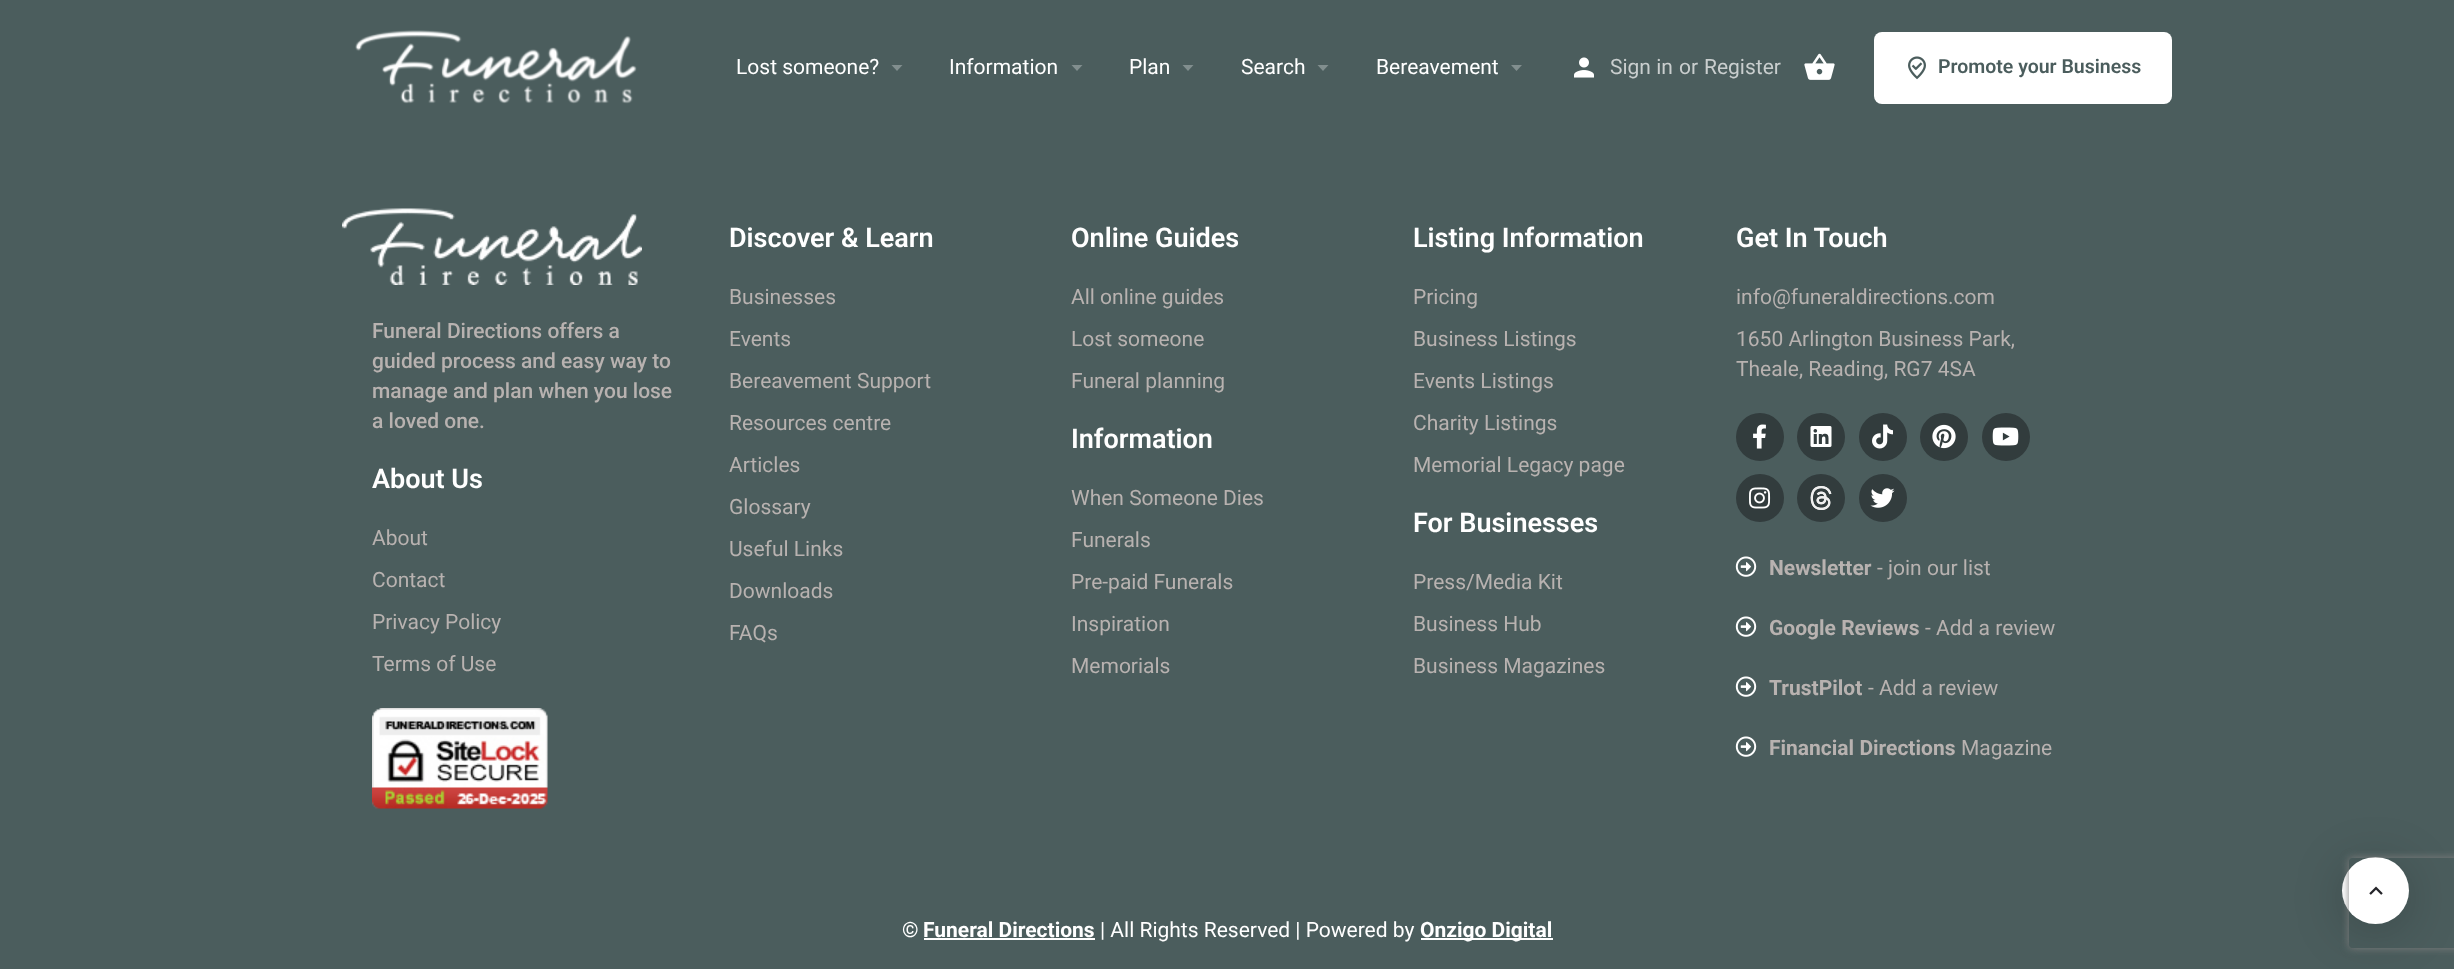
<svg xmlns="http://www.w3.org/2000/svg" width="2454" height="969">
<style>
.a{font:21px Roboto;fill:#fff}
.b{font:21px Roboto;fill:#c9cece}
.c{font:600 19.5px Roboto;fill:#4b5d5d}
.d{font:500 21px Roboto;fill:#b8b2b0}
.e{font:600 27px Roboto;fill:#fff}
.f{font:21px Roboto;fill:#b8b2b0}
.g{font:bold 21px Roboto;fill:#b8b2b0}
.h{font:bold 21px Roboto;fill:#fff}
</style>
<defs>
<clipPath id="clip1"><path d="M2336 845h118v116h-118zm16 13h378c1.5 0 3 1.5 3 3v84c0 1.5-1.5 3-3 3h-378c-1.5 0-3-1.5-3-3v-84c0-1.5 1.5-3 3-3z" clip-rule="evenodd"/></clipPath>
</defs>
<rect width="100%" height="100%" fill="#4b5d5d"/>
<image href="1.png" x="355" y="30" width="282" height="74"/>
<path fill="#818e8e" d="M891.5 65h11l-5.5 6z"/>
<path fill="#818e8e" d="M1071.5 65h11l-5.5 6z"/>
<path fill="#818e8e" d="M1182.5 65h11l-5.5 6z"/>
<path fill="#818e8e" d="M1317.5 65h11l-5.5 6z"/>
<path fill="#818e8e" d="M1511 65h11l-5.5 6z"/>
<image href="2.png" x="1574" y="57" width="20" height="21"/>
<image href="3.png" x="1804" y="53" width="31" height="27"/>
<rect fill="#fff" x="1874" y="32" width="298" height="72" rx="8"/>
<image href="4.png" x="1908" y="56" width="18" height="24"/>
<image href="5.png" x="342" y="208" width="300" height="77"/>
<image href="6.png" x="372" y="708" width="176" height="101"/>
<circle fill="#323c3d" cx="1760" cy="437" r="24"/>
<image href="7.png" x="1753" y="424" width="13" height="25"/>
<circle fill="#323c3d" cx="1821" cy="437" r="24"/>
<image href="8.png" x="1810" y="426" width="22" height="21"/>
<circle fill="#323c3d" cx="1883" cy="437" r="24"/>
<image href="9.png" x="1872" y="424" width="21" height="25"/>
<circle fill="#323c3d" cx="1944" cy="437" r="24"/>
<image href="10.png" x="1932" y="424" width="24" height="25"/>
<circle fill="#323c3d" cx="2006" cy="437" r="24"/>
<image href="11.png" x="1992" y="427" width="27" height="19"/>
<circle fill="#323c3d" cx="1760" cy="498" r="24"/>
<image href="12.png" x="1749" y="487" width="22" height="22"/>
<circle fill="#323c3d" cx="1821" cy="498" r="24"/>
<image href="13.png" x="1810" y="486" width="22" height="24"/>
<circle fill="#323c3d" cx="1883" cy="498" r="24"/>
<image href="14.png" x="1870" y="488" width="25" height="20"/>
<image href="15.png" x="1735" y="556" width="22" height="21"/>
<image href="15.png" x="1735" y="616" width="22" height="21"/>
<image href="15.png" x="1735" y="676" width="22" height="21"/>
<image href="15.png" x="1735" y="736" width="22" height="21"/>
<path fill="#fff" d="M924 938h171v2H924z"/>
<path fill="#fff" d="M1421 938h132v2H1421z"/>
<rect fill="#00000033" filter="blur(25px)" x="2342" y="864" width="67" height="68" rx="33.5"/>
<circle fill="#fff" cx="2375.5" cy="890.5" r="33.5"/>
<image href="16.png" x="2369" y="886" width="14" height="9"/>
<g clip-path="url(#clip1)">
<rect fill="#808080" filter="blur(4px)" x="2349" y="858" width="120" height="90" rx="3"/>
</g>
<text class="a" x="736" y="74">Lost someone?</text>
<text class="a" x="949" y="74">Information</text>
<text class="a" x="1129" y="74">Plan</text>
<text class="a" x="1241" y="74">Search</text>
<text class="a" x="1376" y="74">Bereavement</text>
<text class="b" x="1610" y="74">Sign in</text>
<text class="b" x="1679" y="74">or</text>
<text class="b" x="1704" y="74">Register</text>
<text class="c" x="1938" y="73">Promote your Business</text>
<text class="d" x="372" y="338">Funeral Directions offers a</text>
<text class="d" x="372" y="368">guided process and easy way to</text>
<text class="d" x="372" y="398">manage and plan when you lose</text>
<text class="d" x="372" y="428">a loved one.</text>
<text class="e" x="372" y="488">About Us</text>
<text class="f" x="372" y="545">About</text>
<text class="f" x="372" y="587">Contact</text>
<text class="f" x="372" y="629">Privacy Policy</text>
<text class="f" x="372" y="671">Terms of Use</text>
<text class="e" x="729" y="247">Discover &amp; Learn</text>
<text class="f" x="729" y="304">Businesses</text>
<text class="f" x="729" y="346">Events</text>
<text class="f" x="729" y="388">Bereavement Support</text>
<text class="f" x="729" y="430">Resources centre</text>
<text class="f" x="729" y="472">Articles</text>
<text class="f" x="729" y="514">Glossary</text>
<text class="f" x="729" y="556">Useful Links</text>
<text class="f" x="729" y="598">Downloads</text>
<text class="f" x="729" y="640">FAQs</text>
<text class="e" x="1071" y="247">Online Guides</text>
<text class="f" x="1071" y="304">All online guides</text>
<text class="f" x="1071" y="346">Lost someone</text>
<text class="f" x="1071" y="388">Funeral planning</text>
<text class="e" x="1071" y="448">Information</text>
<text class="f" x="1071" y="505">When Someone Dies</text>
<text class="f" x="1071" y="547">Funerals</text>
<text class="f" x="1071" y="589">Pre-paid Funerals</text>
<text class="f" x="1071" y="631">Inspiration</text>
<text class="f" x="1071" y="673">Memorials</text>
<text class="e" x="1413" y="247">Listing Information</text>
<text class="f" x="1413" y="304">Pricing</text>
<text class="f" x="1413" y="346">Business Listings</text>
<text class="f" x="1413" y="388">Events Listings</text>
<text class="f" x="1413" y="430">Charity Listings</text>
<text class="f" x="1413" y="472">Memorial Legacy page</text>
<text class="e" x="1413" y="532">For Businesses</text>
<text class="f" x="1413" y="589">Press/Media Kit</text>
<text class="f" x="1413" y="631">Business Hub</text>
<text class="f" x="1413" y="673">Business Magazines</text>
<text class="e" x="1736" y="247">Get In Touch</text>
<text class="f" x="1736" y="304">info@funeraldirections.com</text>
<text class="f" x="1736" y="346">1650 Arlington Business Park,</text>
<text class="f" x="1736" y="376">Theale, Reading, RG7 4SA</text>
<text class="g" x="1769" y="575">Newsletter</text>
<text class="f" x="1877" y="575">- join our list</text>
<text class="g" x="1769" y="635">Google Reviews</text>
<text class="f" x="1925" y="635">- Add a review</text>
<text class="g" x="1769" y="695">TrustPilot</text>
<text class="f" x="1868" y="695">- Add a review</text>
<text class="g" x="1769" y="755">Financial Directions</text>
<text class="f" x="1961" y="755">Magazine</text>
<text class="a" x="902" y="937">©</text>
<text class="h" x="923" y="937">Funeral Directions</text>
<text class="a" x="1100" y="937">| All Rights Reserved | Powered by</text>
<text class="h" x="1420" y="937">Onzigo Digital</text>
</svg>
